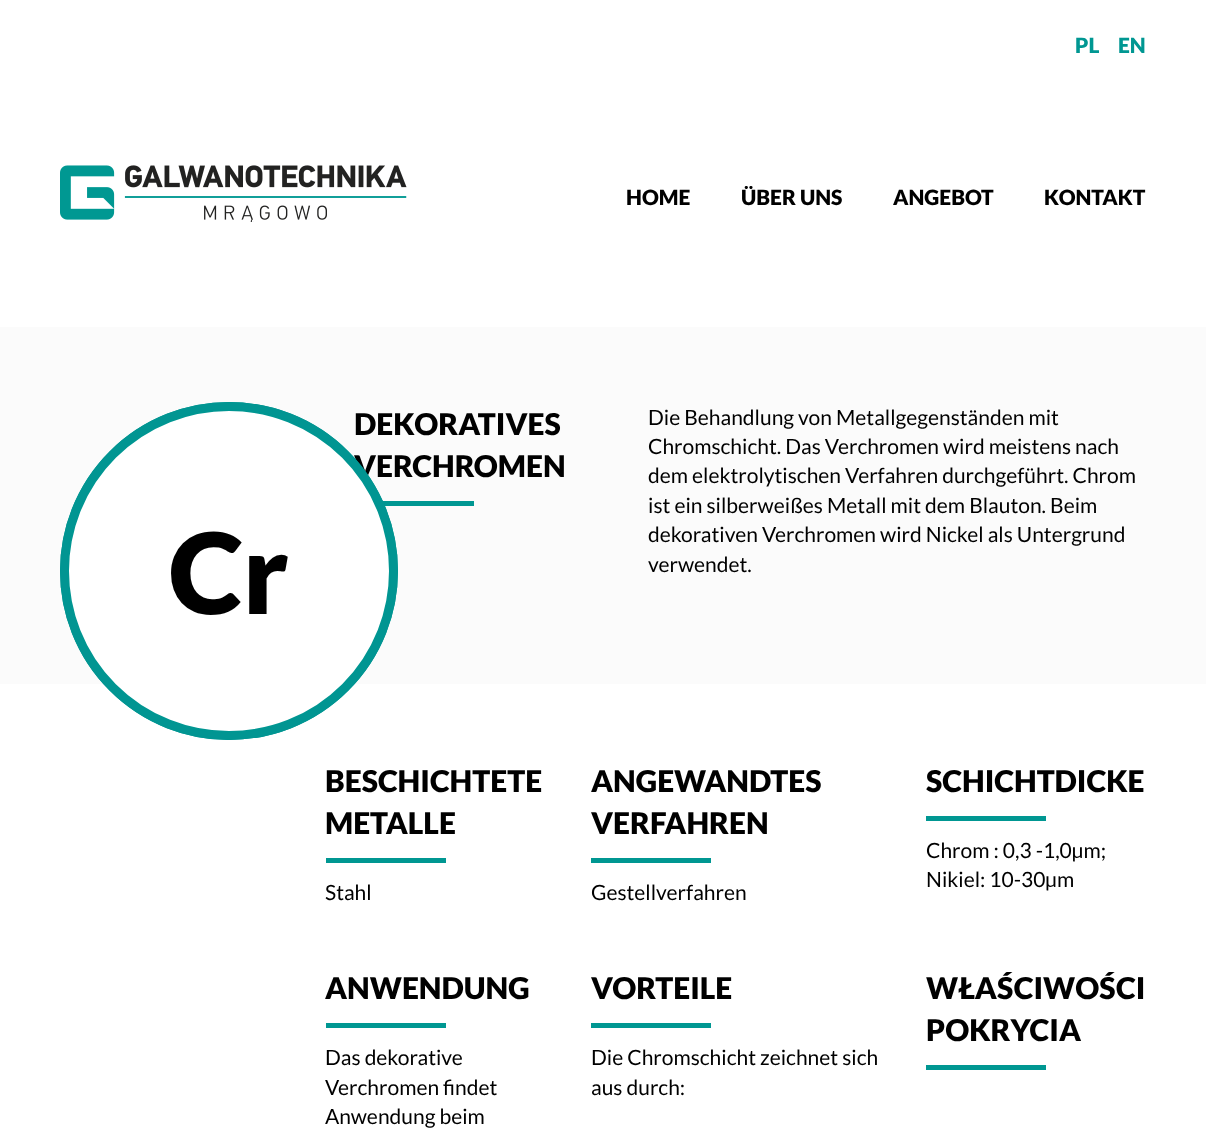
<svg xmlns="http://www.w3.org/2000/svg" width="1206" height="1136">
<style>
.a{font:900 21px Lato;fill:#009792}
.b{font:900 21px Lato;fill:#000}
.c{font:900 30px Lato;fill:#000}
.d{font:21px Lato;fill:#000}
.e{font:900 112px Lato;fill:#000}
</style>
<rect width="100%" height="100%" fill="#fff"/>
<image href="1.png" x="60" y="165" width="347" height="57"/>
<path fill="#fbfbfb" d="M0 327h1206v357H0z"/>
<path fill="#009792" d="M382 501h92v5H382z"/>
<path fill="#009792" d="M326 858h120v5H326z"/>
<path fill="#009792" d="M591 858h120v5H591z"/>
<path fill="#009792" d="M926 816h120v5H926z"/>
<path fill="#009792" d="M326 1023h120v5H326z"/>
<path fill="#009792" d="M591 1023h120v5H591z"/>
<path fill="#009792" d="M926 1065h120v5H926z"/>
<text class="a" x="1075" y="53">PL</text>
<text class="a" x="1118" y="53">EN</text>
<text class="b" x="626" y="205">HOME</text>
<text class="b" x="741" y="205">ÜBER UNS</text>
<text class="b" x="893" y="205">ANGEBOT</text>
<text class="b" x="1044" y="205">KONTAKT</text>
<text class="c" x="354" y="435">DEKORATIVES</text>
<text class="c" x="354" y="477">VERCHROMEN</text>
<text class="d" x="648" y="425">Die Behandlung von Metallgegenständen mit</text>
<text class="d" x="648" y="454">Chromschicht. Das Verchromen wird meistens nach</text>
<text class="d" x="648" y="483">dem elektrolytischen Verfahren durchgeführt. Chrom</text>
<text class="d" x="648" y="513">ist ein silberweißes Metall mit dem Blauton. Beim</text>
<text class="d" x="648" y="542">dekorativen Verchromen wird Nickel als Untergrund</text>
<text class="d" x="648" y="572">verwendet.</text>
<circle fill="#fff" stroke="#009692" stroke-width="9" cx="229" cy="571" r="164.5"/>
<text class="e" x="169" y="614">Cr</text>
<circle fill="none" stroke="#019592" stroke-width="7" cx="229" cy="571" r="165.5"/>
<text class="c" x="325" y="792">BESCHICHTETE</text>
<text class="c" x="325" y="834">METALLE</text>
<text class="d" x="325" y="900">Stahl</text>
<text class="c" x="591" y="792">ANGEWANDTES</text>
<text class="c" x="591" y="834">VERFAHREN</text>
<text class="d" x="591" y="900">Gestellverfahren</text>
<text class="c" x="926" y="792">SCHICHTDICKE</text>
<text class="d" x="926" y="858">Chrom : 0,3 -1,0µm;</text>
<text class="d" x="926" y="887">Nikiel: 10-30µm</text>
<text class="c" x="325" y="999">ANWENDUNG</text>
<text class="d" x="325" y="1065">Das dekorative</text>
<text class="d" x="325" y="1095">Verchromen findet</text>
<text class="d" x="325" y="1124">Anwendung beim</text>
<text class="c" x="591" y="999">VORTEILE</text>
<text class="d" x="591" y="1065">Die Chromschicht zeichnet sich</text>
<text class="d" x="591" y="1095">aus durch:</text>
<text class="c" x="926" y="999">WŁAŚCIWOŚCI</text>
<text class="c" x="926" y="1041">POKRYCIA</text>
</svg>
